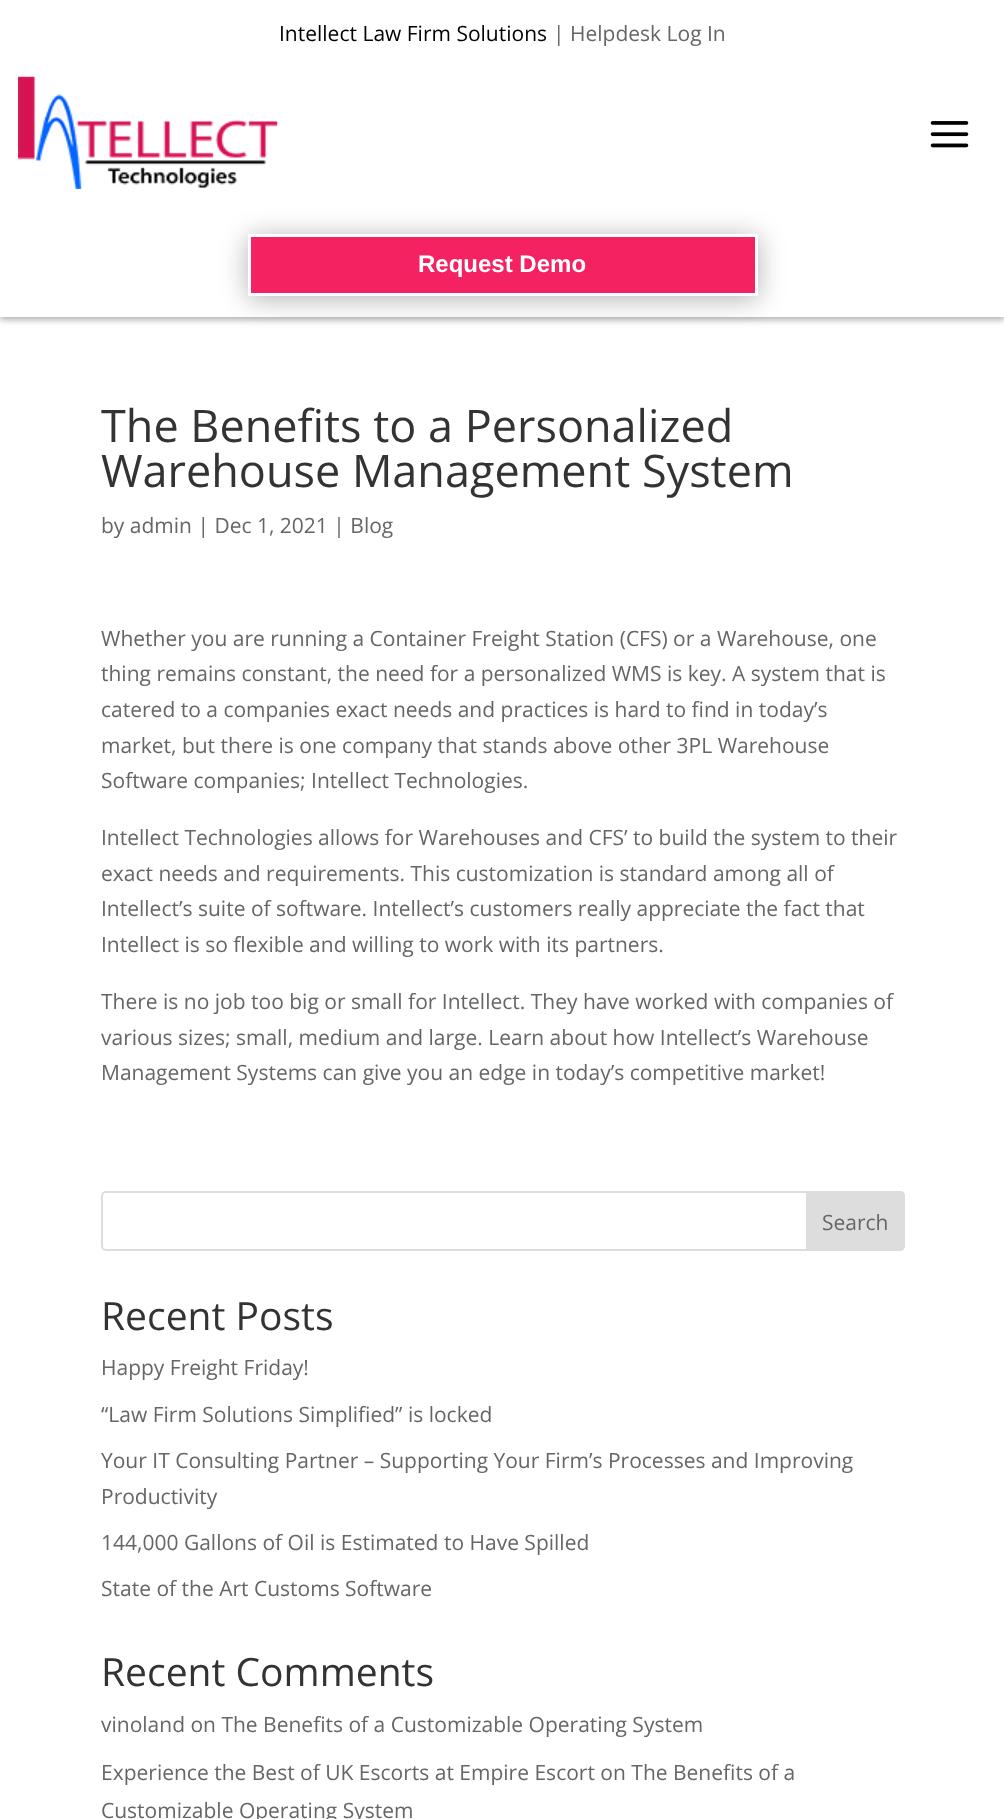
<svg xmlns="http://www.w3.org/2000/svg" width="1004" height="1819">
<style>
.a{font:21px Open Sans;fill:#000}
.b{font:21px Open Sans;fill:#666}
.c{font:bold 24px Liberation Sans;fill:#fff}
.d{font:45px Open Sans;fill:#333}
.e{font:39px Open Sans;fill:#333}
</style>
<rect width="100%" height="100%" fill="#fff"/>
<path fill="#0000004d" filter="blur(3px)" d="M0 3h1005v317H0z"/>
<path fill="#fff" d="M0 0h1004v317H0z"/>
<image href="1.png" x="18" y="76" width="260" height="113"/>
<image href="2.png" x="930" y="121" width="39" height="27"/>
<rect fill="#0000004d" filter="blur(13.5px)" x="248" y="237" width="510" height="62" rx="1.5"/>
<path fill="#f42261" stroke="#fff" stroke-width="3" d="M249.5 235.5h507v59H249.5z"/>
<rect fill="none" stroke="#ddd" stroke-width="2" x="102" y="1192" width="802" height="58" rx="4"/>
<path fill="#ddd" stroke="#ddd" stroke-width="2" d="M807 1192h93c2 0 4 2 4 4v50c0 2-2 4-4 4h-93z"/>
<text class="a" x="279" y="41">Intellect Law Firm Solutions</text>
<text class="b" x="553" y="41">| Helpdesk Log In</text>
<text class="c" x="418" y="272">Request Demo</text>
<text class="d" x="101" y="442">The Benefits to a Personalized</text>
<text class="d" x="101" y="487">Warehouse Management System</text>
<text class="b" x="101" y="533">by admin | Dec 1, 2021 | Blog</text>
<text class="b" x="101" y="646">Whether you are running a Container Freight Station (CFS) or a Warehouse, one</text>
<text class="b" x="101" y="681">thing remains constant, the need for a personalized WMS is key. A system that is</text>
<text class="b" x="101" y="717">catered to a companies exact needs and practices is hard to find in today’s</text>
<text class="b" x="101" y="753">market, but there is one company that stands above other 3PL Warehouse</text>
<text class="b" x="101" y="788">Software companies; Intellect Technologies.</text>
<text class="b" x="101" y="845">Intellect Technologies allows for Warehouses and CFS’ to build the system to their</text>
<text class="b" x="101" y="881">exact needs and requirements. This customization is standard among all of</text>
<text class="b" x="101" y="916">Intellect’s suite of software. Intellect’s customers really appreciate the fact that</text>
<text class="b" x="101" y="952">Intellect is so flexible and willing to work with its partners.</text>
<text class="b" x="101" y="1009">There is no job too big or small for Intellect. They have worked with companies of</text>
<text class="b" x="101" y="1045">various sizes; small, medium and large. Learn about how Intellect’s Warehouse</text>
<text class="b" x="101" y="1080">Management Systems can give you an edge in today’s competitive market!</text>
<text class="b" x="822" y="1230">Search</text>
<text class="e" x="101" y="1330">Recent Posts</text>
<text class="b" x="101" y="1375">Happy Freight Friday!</text>
<text class="b" x="101" y="1422">“Law Firm Solutions Simplified” is locked</text>
<text class="b" x="101" y="1468">Your IT Consulting Partner – Supporting Your Firm’s Processes and Improving</text>
<text class="b" x="101" y="1504">Productivity</text>
<text class="b" x="101" y="1550">144,000 Gallons of Oil is Estimated to Have Spilled</text>
<text class="b" x="101" y="1596">State of the Art Customs Software</text>
<text class="e" x="101" y="1686">Recent Comments</text>
<text class="b" x="101" y="1732">vinoland on The Benefits of a Customizable Operating System</text>
<text class="b" x="101" y="1780">Experience the Best of UK Escorts at Empire Escort on The Benefits of a</text>
<text class="b" x="101" y="1818">Customizable Operating System</text>
</svg>
